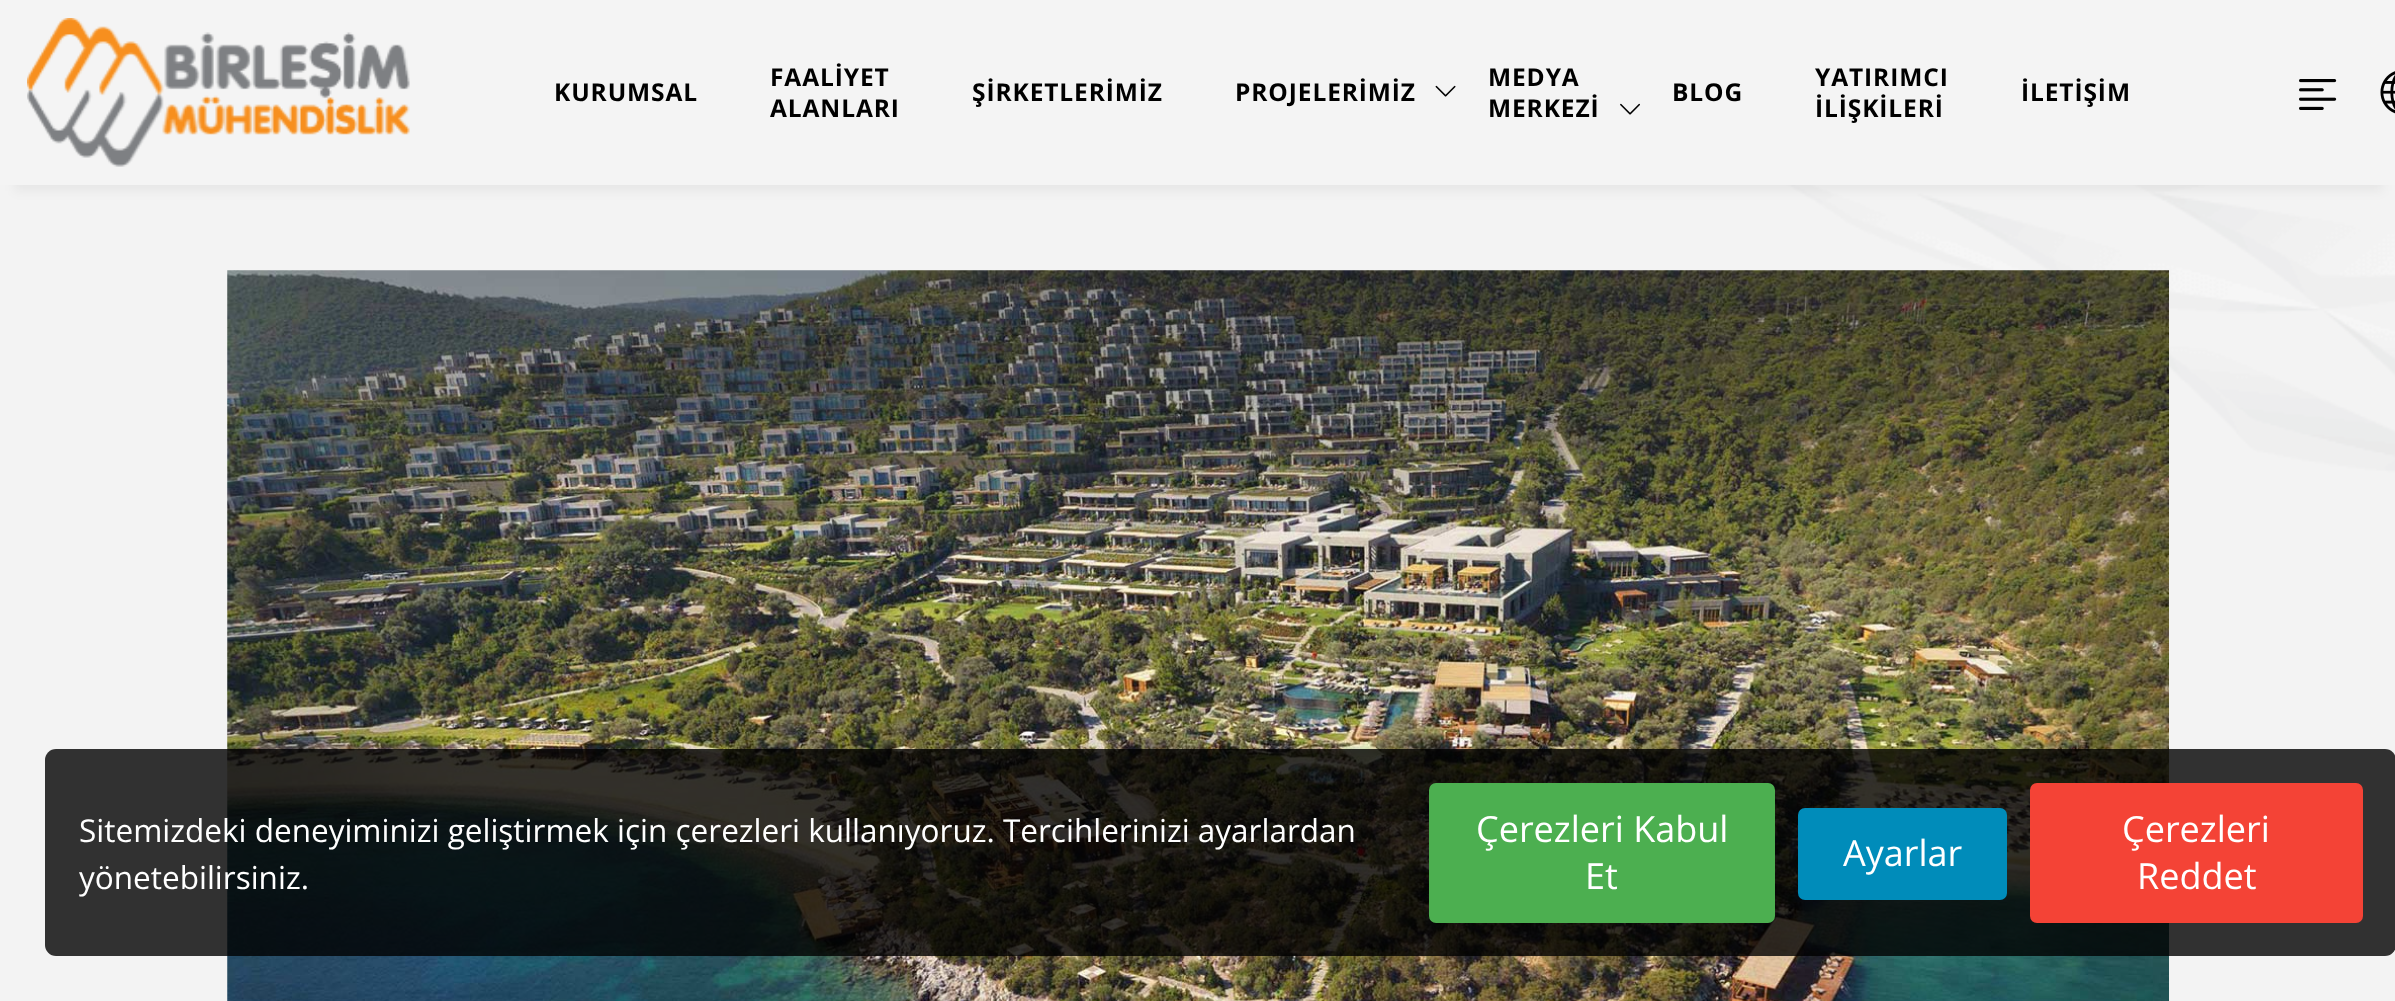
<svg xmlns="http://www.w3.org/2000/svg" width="2395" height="1001">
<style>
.a{font:bold 24.5px Open Sans;letter-spacing:0.9px;fill:#000}
.b{font:31.5px Open Sans;fill:#fff}
.c{font:36px Open Sans;fill:#fff}
</style>
<rect width="100%" height="100%" fill="#fff"/>
<image href="6.png" x="0" y="185" width="2395" height="816"/>
<path fill="#0000000d" filter="blur(5.5px)" d="M14 34h2369v157H14z"/>
<path fill="#f4f4f4" d="M0 0h2395v185H0z"/>
<image href="1.png" x="27" y="18" width="383" height="149"/>
<image href="2.png" x="1435" y="85" width="21" height="12"/>
<image href="3.png" x="1620" y="103" width="20" height="12"/>
<image href="4.png" x="2299" y="79" width="38" height="31"/>
<image href="5.png" x="2380" y="71" width="15" height="43"/>
<image href="7.png" x="227" y="270" width="1942" height="731"/>
<rect fill="#000000cc" x="45" y="749" width="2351" height="207" rx="11"/>
<rect fill="#4caf50" x="1429" y="783" width="346" height="140" rx="7"/>
<rect fill="#008cba" x="1798" y="808" width="209" height="92" rx="7"/>
<rect fill="#f44336" x="2030" y="783" width="333" height="140" rx="7"/>
<text class="a" x="554" y="101">KURUMSAL</text>
<text class="a" x="770" y="86">FAALİYET</text>
<text class="a" x="770" y="117">ALANLARI</text>
<text class="a" x="972" y="101">ŞİRKETLERİMİZ</text>
<text class="a" x="1235" y="101">PROJELERİMİZ</text>
<text class="a" x="1488" y="86">MEDYA</text>
<text class="a" x="1488" y="117">MERKEZİ</text>
<text class="a" x="1672" y="101">BLOG</text>
<text class="a" x="1815" y="86">YATIRIMCI</text>
<text class="a" x="1815" y="117">İLİŞKİLERİ</text>
<text class="a" x="2021" y="101">İLETİŞİM</text>
<text class="b" x="79" y="842">Sitemizdeki deneyiminizi geliştirmek için çerezleri kullanıyoruz. Tercihlerinizi ayarlardan</text>
<text class="b" x="79" y="889">yönetebilirsiniz.</text>
<text class="c" x="1476" y="842">Çerezleri Kabul</text>
<text class="c" x="1585" y="889">Et</text>
<text class="c" x="1843" y="866">Ayarlar</text>
<text class="c" x="2122" y="842">Çerezleri</text>
<text class="c" x="2137" y="889">Reddet</text>
</svg>
